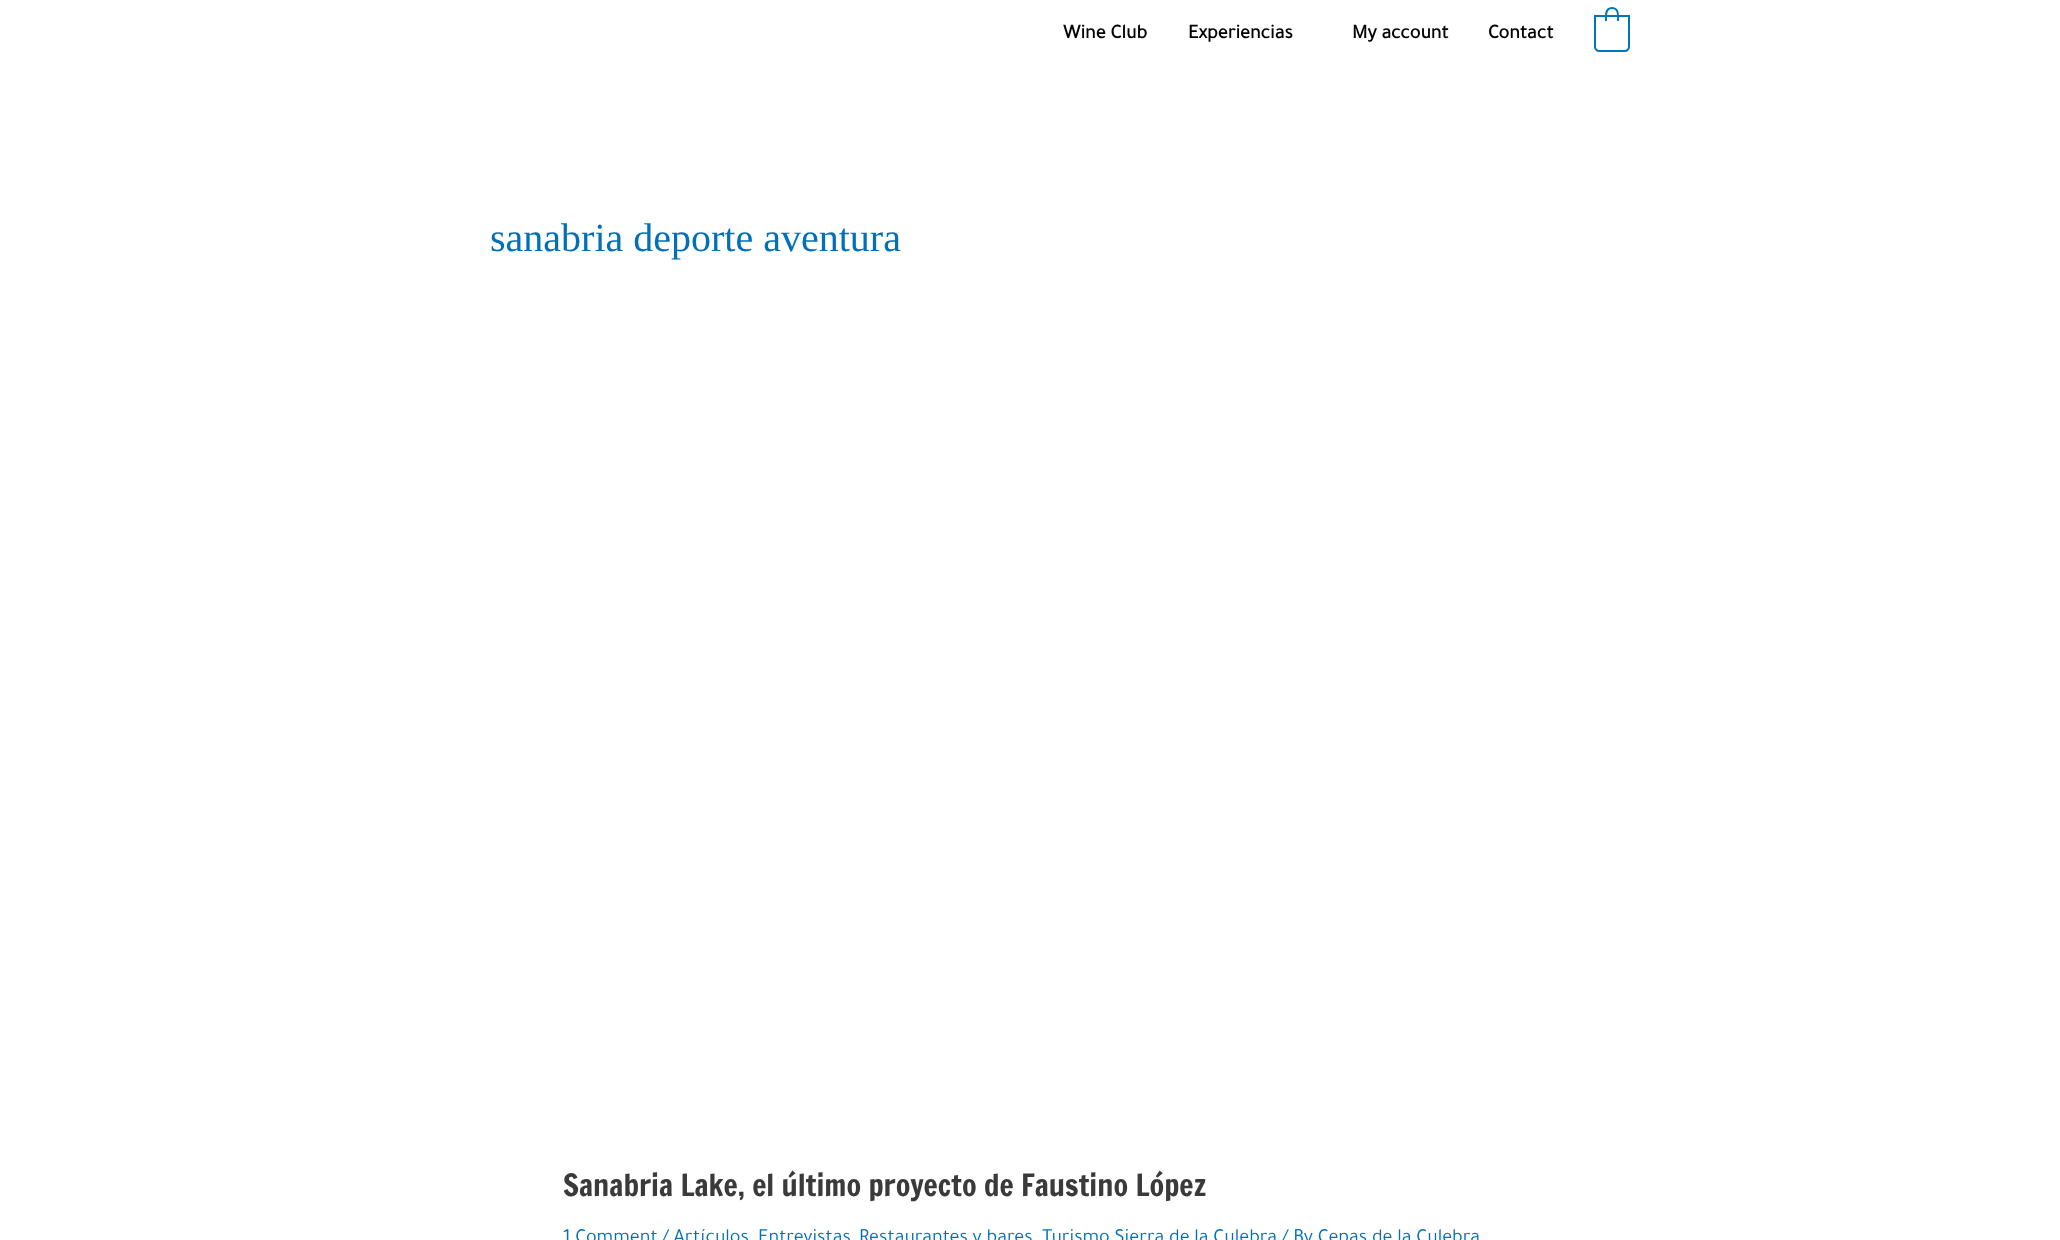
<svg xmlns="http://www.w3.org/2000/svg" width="2060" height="1240">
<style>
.a{font:bold 20px Tajawal;fill:#000}
.b{font:40px Liberation Serif;fill:#0170b9}
.c{font:30px Francois One;fill:#3a3a3a}
.d{font:20px Tajawal;fill:#0170b9}
</style>
<rect width="100%" height="100%" fill="#fff"/>
<path fill="none" stroke="#0274be" stroke-width="2" d="M1595 16h34v31c0 2-2 4-4 4h-26c-2 0-4-2-4-4z"/>
<path fill="#0274be" fill-rule="evenodd" d="M1612 7c8 0 7 8.5 7 14h-14c0-5.5-1-14 7-14zm0 2c6.5 0 5 8 5 12h-10c0-4-1-12 5-12z"/>
<text class="a" x="1063" y="38">Wine Club</text>
<text class="a" x="1188" y="38">Experiencias</text>
<text class="a" x="1352" y="38">My account</text>
<text class="a" x="1488" y="38">Contact</text>
<text class="b" x="490" y="251">sanabria deporte aventura</text>
<text class="c" x="563" y="1196">Sanabria Lake, el último proyecto de Faustino López</text>
<text class="d" x="563" y="1242">1 Comment / Artículos</text>
<text class="d" x="758" y="1242">Entrevistas</text>
<text class="d" x="859" y="1242">Restaurantes y bares</text>
<text class="d" x="1042" y="1242">Turismo Sierra de la Culebra / By Cepas de la Culebra</text>
</svg>
